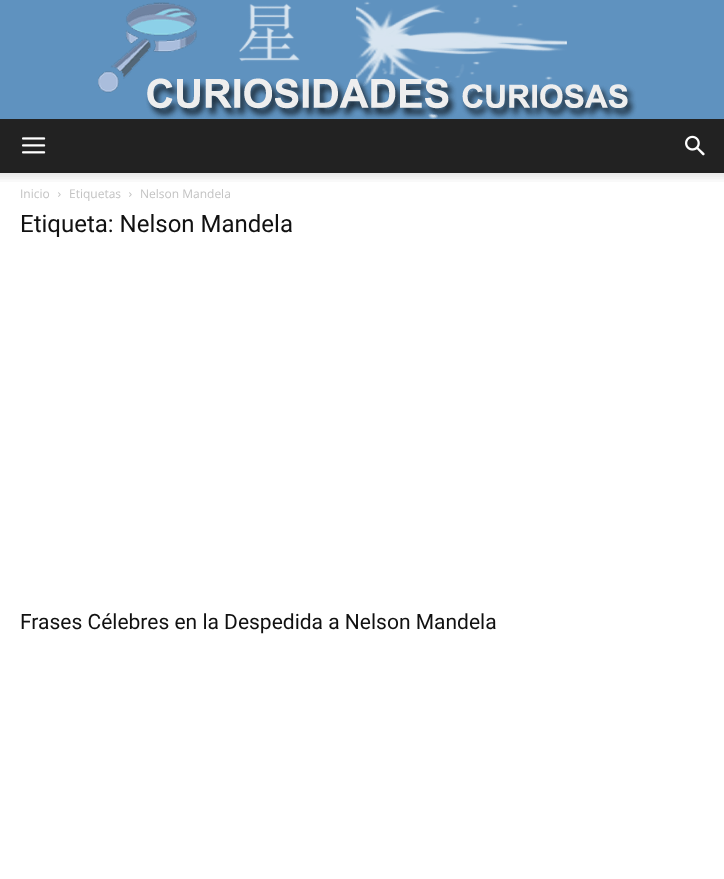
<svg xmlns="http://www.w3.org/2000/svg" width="724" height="879">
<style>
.a{font:12px Open Sans;fill:#c3c3c3}
.b{font:24px Roboto;fill:#111}
.c{font:21px Roboto;fill:#111}
</style>
<rect width="100%" height="100%" fill="#fff"/>
<path fill="#5f92bf" d="M0 0h724v119H0z"/>
<image href="1.png" x="98" y="1" width="539" height="118"/>
<path fill="#222" d="M0 119h724v54H0z"/>
<image href="2.png" x="22" y="137" width="24" height="17"/>
<image href="3.png" x="685" y="135" width="20" height="21"/>
<image href="4.png" x="0" y="173" width="724" height="9"/>
<image href="5.png" x="58" y="192" width="3" height="5"/>
<image href="5.png" x="129" y="192" width="3" height="5"/>
<text class="a" x="20" y="198">Inicio</text>
<text class="a" x="69" y="198">Etiquetas</text>
<text class="a" x="140" y="198">Nelson Mandela</text>
<text class="b" x="20" y="232">Etiqueta: Nelson Mandela</text>
<text class="c" x="20" y="629">Frases Célebres en la Despedida a Nelson Mandela</text>
</svg>
